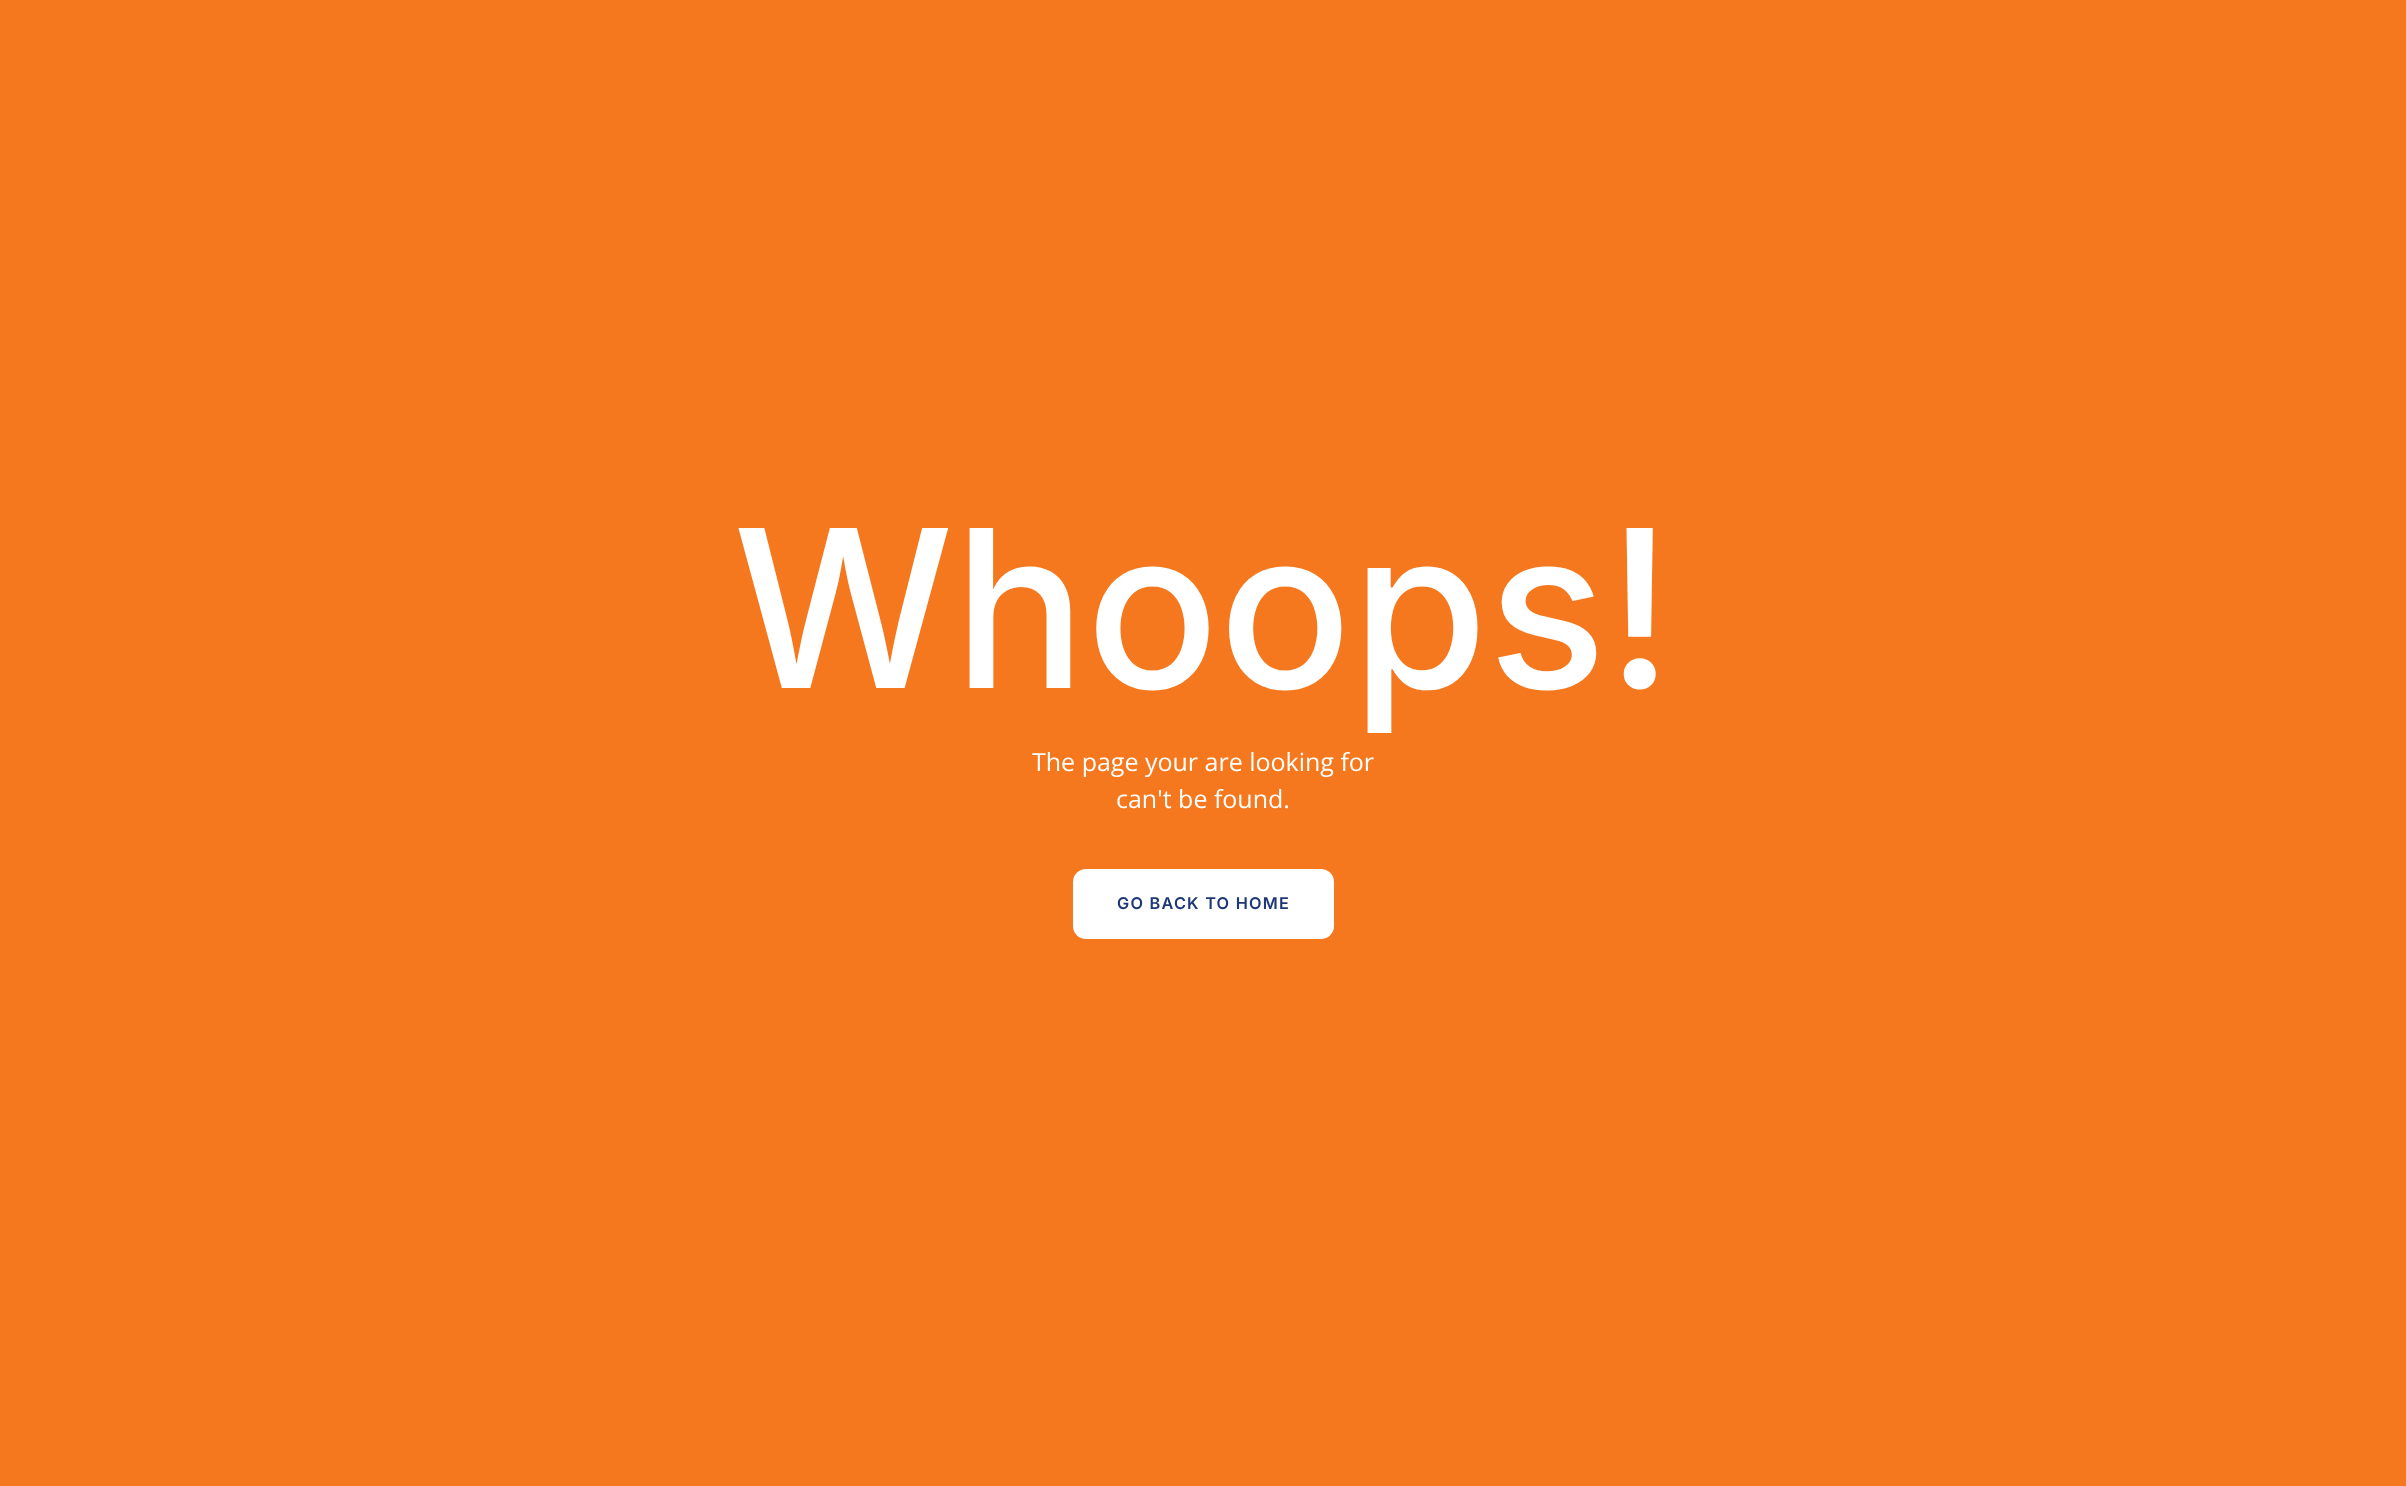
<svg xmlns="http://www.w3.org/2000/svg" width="2406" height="1486">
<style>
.a{font:500 220px Inter;fill:#fff}
.b{font:25px Open Sans;fill:#fff}
.c{font:600 16.25px Inter;letter-spacing:1.25px;fill:#1e3876}
</style>
<rect width="100%" height="100%" fill="#f5781e"/>
<rect fill="#fff" x="1073" y="869" width="261" height="70" rx="13"/>
<text class="a" x="733" y="688">Whoops!</text>
<text class="b" x="1032" y="771">The page your are looking for</text>
<text class="b" x="1116" y="808">can't be found.</text>
<text class="c" x="1117" y="909">GO BACK TO HOME</text>
</svg>
